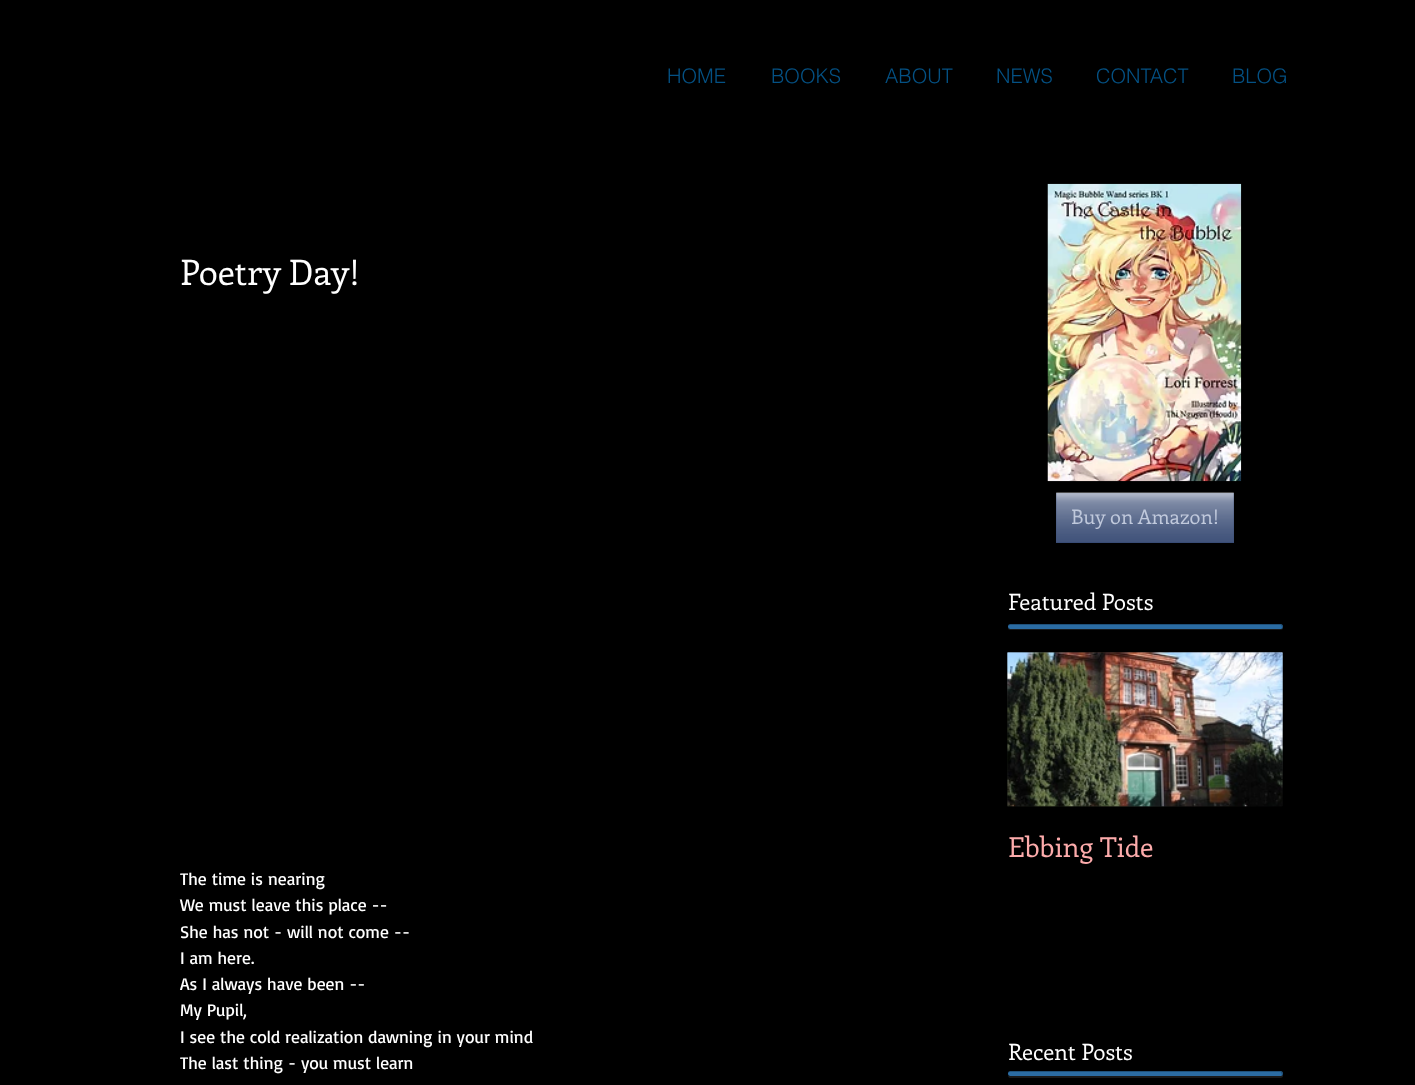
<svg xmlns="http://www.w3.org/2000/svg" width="1415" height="1085">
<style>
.a{font:300 20px helvetica;fill:#045184}
.b{font:35px Enriqueta;fill:#fff}
.c{font:17.5px Basic;fill:#fff}
.d{font:20px Enriqueta;fill:#c0c9dc}
.e{font:22.5px Enriqueta;fill:#fff}
.f{font:27.5px Enriqueta;fill:#fcabab}
</style>
<rect width="100%" height="100%" fill="#000"/>
<image href="1.png" x="1047" y="183" width="195" height="299"/>
<path fill="#394c75" d="M1056 493h178v50H1056z"/>
<image href="2.png" x="1056" y="492" width="178" height="50"/>
<path fill="#1a1a1a" d="M1008 628c0 1 1 2 2 2h270c3 0 4-2 2-4c1 1-1 3-2 3h-270z"/>
<rect fill="#2b6ca3" x="1008" y="624" width="275" height="5" rx="2.5"/>
<path fill="#00000040" d="M1010 625h270c2 0 2 2 2 4c2-2 1-5-2-5h-270c-1 0-2 2-2 3c0-1 1-2 2-2z"/>
<image href="3.png" x="1007" y="652" width="276" height="155"/>
<image href="4.png" x="1007" y="652" width="276" height="155"/>
<path fill="#1a1a1a" d="M1008 1075c0 2 1 3 2 3h270c3 0 4-2 2-4c0 1-1 2-2 2h-270c-1 0-2 0-2-1z"/>
<rect fill="#2b6ca3" x="1008" y="1071" width="275" height="5" rx="2.5"/>
<path fill="#00000040" d="M1010 1072h270c1 0 2 2 2 4c2-2 1-5-2-5h-270c-1 0-2 2-2 3c0-1 1-2 2-2z"/>
<text class="a" x="667" y="83">HOME</text>
<text class="a" x="771" y="83">BOOKS</text>
<text class="a" x="885" y="83">ABOUT</text>
<text class="a" x="996" y="83">NEWS</text>
<text class="a" x="1096" y="83">CONTACT</text>
<text class="a" x="1232" y="83">BLOG</text>
<text class="b" x="180" y="285">Poetry Day!</text>
<text class="c" x="180" y="885">The time is nearing</text>
<text class="c" x="180" y="911">We must leave this place --</text>
<text class="c" x="180" y="938">She has not - will not come --</text>
<text class="c" x="180" y="964">I am here.</text>
<text class="c" x="180" y="990">As I always have been --</text>
<text class="c" x="180" y="1016">My Pupil,</text>
<text class="c" x="180" y="1043">I see the cold realization dawning in your mind</text>
<text class="c" x="180" y="1069">The last thing - you must learn</text>
<text class="d" x="1071" y="524">Buy on Amazon!</text>
<text class="e" x="1008" y="610">Featured Posts</text>
<text class="f" x="1008" y="857">Ebbing Tide</text>
<text class="e" x="1008" y="1060">Recent Posts</text>
</svg>
